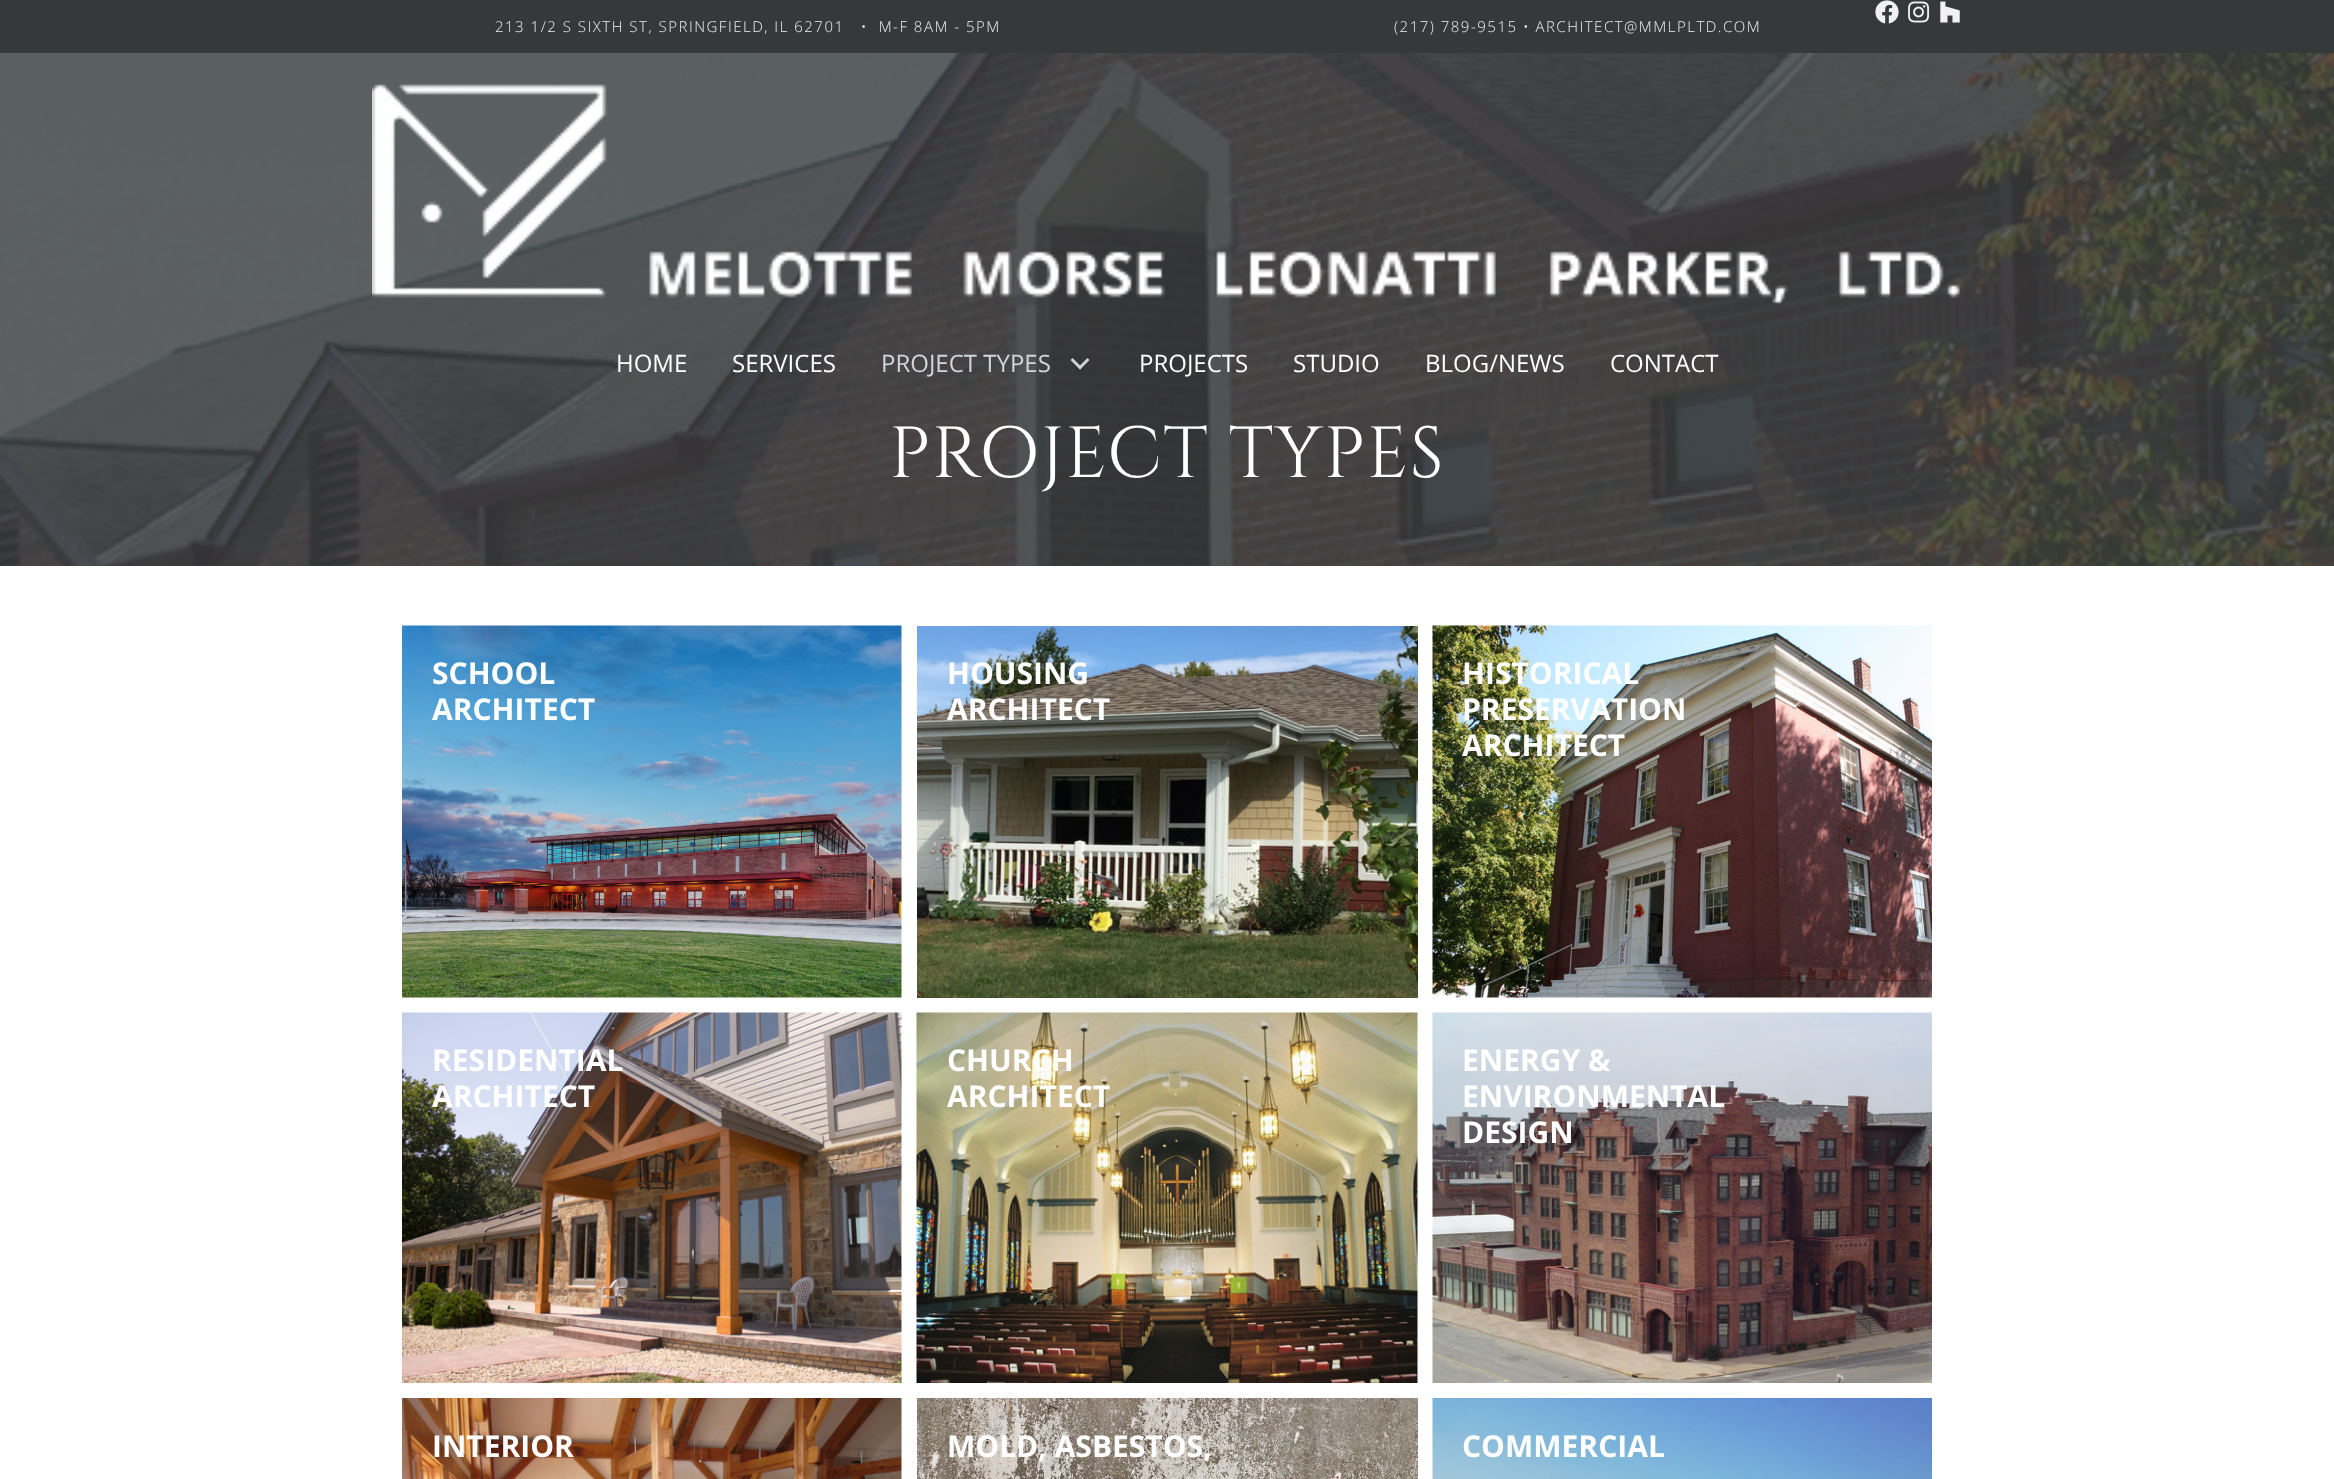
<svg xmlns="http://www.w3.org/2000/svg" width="2334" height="1479">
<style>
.a{font:300 15px Open Sans;letter-spacing:1.5px;fill:#f1f1f1}
.b{font:24px Open Sans;fill:#fff}
.c{font:24px Open Sans;fill:#d1d6d8}
.d{font:72px Cinzel;letter-spacing:1.5px;fill:#fff}
.e{font:bold 30px Open Sans;fill:#fff}
</style>
<rect width="100%" height="100%" fill="#fff"/>
<path fill="#36393a" d="M0 0h2334v53H0z"/>
<image href="1.png" x="1875" y="0" width="24" height="24"/>
<image href="2.png" x="1908" y="1" width="22" height="22"/>
<image href="3.png" x="1940" y="1" width="20" height="22"/>
<image href="5.png" x="0" y="53" width="2334" height="513"/>
<image href="4.png" x="372" y="84" width="1589" height="220"/>
<path fill="#d1d6d8" d="M1087.5 358l2 2l-9.5 9.5l-2-2z"/>
<path fill="#d1d6d8" d="M1072.5 358l9.5 9.5l-2 2l-9.5-9.5z"/>
<image href="6.png" x="402" y="625" width="500" height="373"/>
<image href="7.png" x="917" y="626" width="501" height="372"/>
<image href="8.png" x="1432" y="625" width="500" height="373"/>
<image href="9.png" x="402" y="1012" width="500" height="371"/>
<image href="10.png" x="916" y="1012" width="502" height="371"/>
<image href="11.png" x="1432" y="1012" width="500" height="371"/>
<image href="12.png" x="402" y="1398" width="500" height="81"/>
<image href="13.png" x="917" y="1398" width="501" height="81"/>
<image href="14.png" x="1432" y="1398" width="500" height="81"/>
<text class="a" xml:space="preserve" x="495" y="32">213 1/2 S SIXTH ST, SPRINGFIELD, IL 62701   •  M-F 8AM - 5PM</text>
<text class="a" x="1394" y="32">(217) 789-9515 • ARCHITECT@MMLPLTD.COM</text>
<text class="b" x="616" y="372">HOME</text>
<text class="b" x="732" y="372">SERVICES</text>
<text class="c" x="881" y="372">PROJECT TYPES</text>
<text class="b" x="1139" y="372">PROJECTS</text>
<text class="b" x="1293" y="372">STUDIO</text>
<text class="b" x="1425" y="372">BLOG/NEWS</text>
<text class="b" x="1610" y="372">CONTACT</text>
<text class="d" x="889" y="477">PROJECT TYPES</text>
<text class="e" x="432" y="684">SCHOOL</text>
<text class="e" x="432" y="720">ARCHITECT</text>
<text class="e" x="947" y="684">HOUSING</text>
<text class="e" x="947" y="720">ARCHITECT</text>
<text class="e" x="1462" y="684">HISTORICAL</text>
<text class="e" x="1462" y="720">PRESERVATION</text>
<text class="e" x="1462" y="756">ARCHITECT</text>
<text class="e" x="432" y="1071">RESIDENTIAL</text>
<text class="e" x="432" y="1107">ARCHITECT</text>
<text class="e" x="947" y="1071">CHURCH</text>
<text class="e" x="947" y="1107">ARCHITECT</text>
<text class="e" x="1462" y="1071">ENERGY &amp;</text>
<text class="e" x="1462" y="1107">ENVIRONMENTAL</text>
<text class="e" x="1462" y="1143">DESIGN</text>
<text class="e" x="432" y="1457">INTERIOR</text>
<text class="e" x="947" y="1457">MOLD, ASBESTOS,</text>
<text class="e" x="1462" y="1457">COMMERCIAL</text>
</svg>
